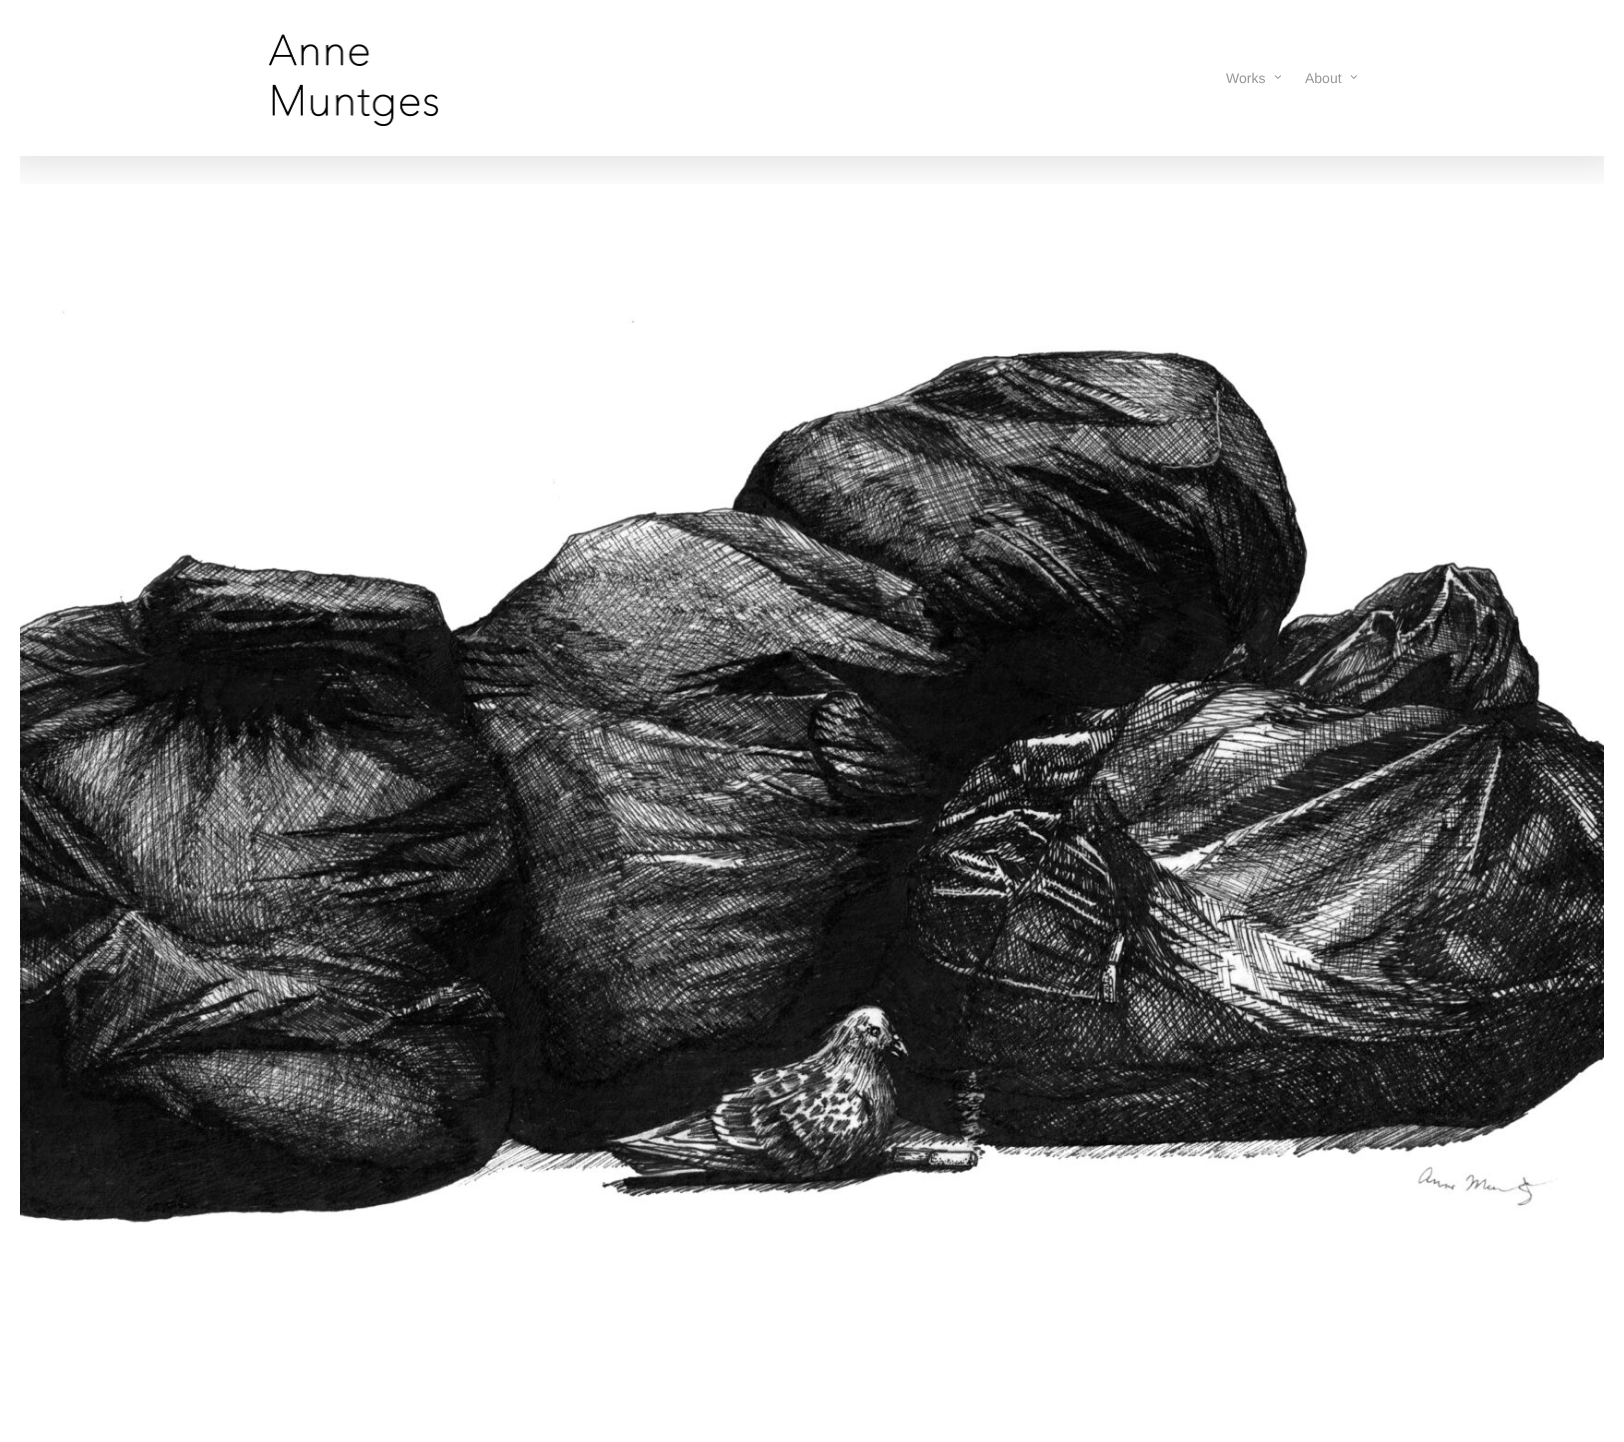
<svg xmlns="http://www.w3.org/2000/svg" width="1624" height="1442">
<style>
.a{font:14px Liberation Sans;fill:#999}
</style>
<defs>
<clipPath id="clip1"><path d="M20 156h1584v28H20z"/></clipPath>
</defs>
<rect width="100%" height="100%" fill="#fff"/>
<image href="3.png" x="20" y="156" width="1584" height="1266"/>
<g clip-path="url(#clip1)">
<path fill="#00000026" filter="blur(22.5px)" d="M0 3h1624v156H0z"/>
</g>
<image href="1.png" x="269" y="34" width="170" height="93"/>
<image href="2.png" x="1274" y="75" width="7" height="4"/>
<image href="2.png" x="1350" y="75" width="7" height="4"/>
<path fill="#fff" d="M0 156h20v34H0z"/>
<path fill="#fff" d="M1604 156h20v34H1604z"/>
<text class="a" x="1226" y="83">Works</text>
<text class="a" x="1305" y="83">About</text>
</svg>
